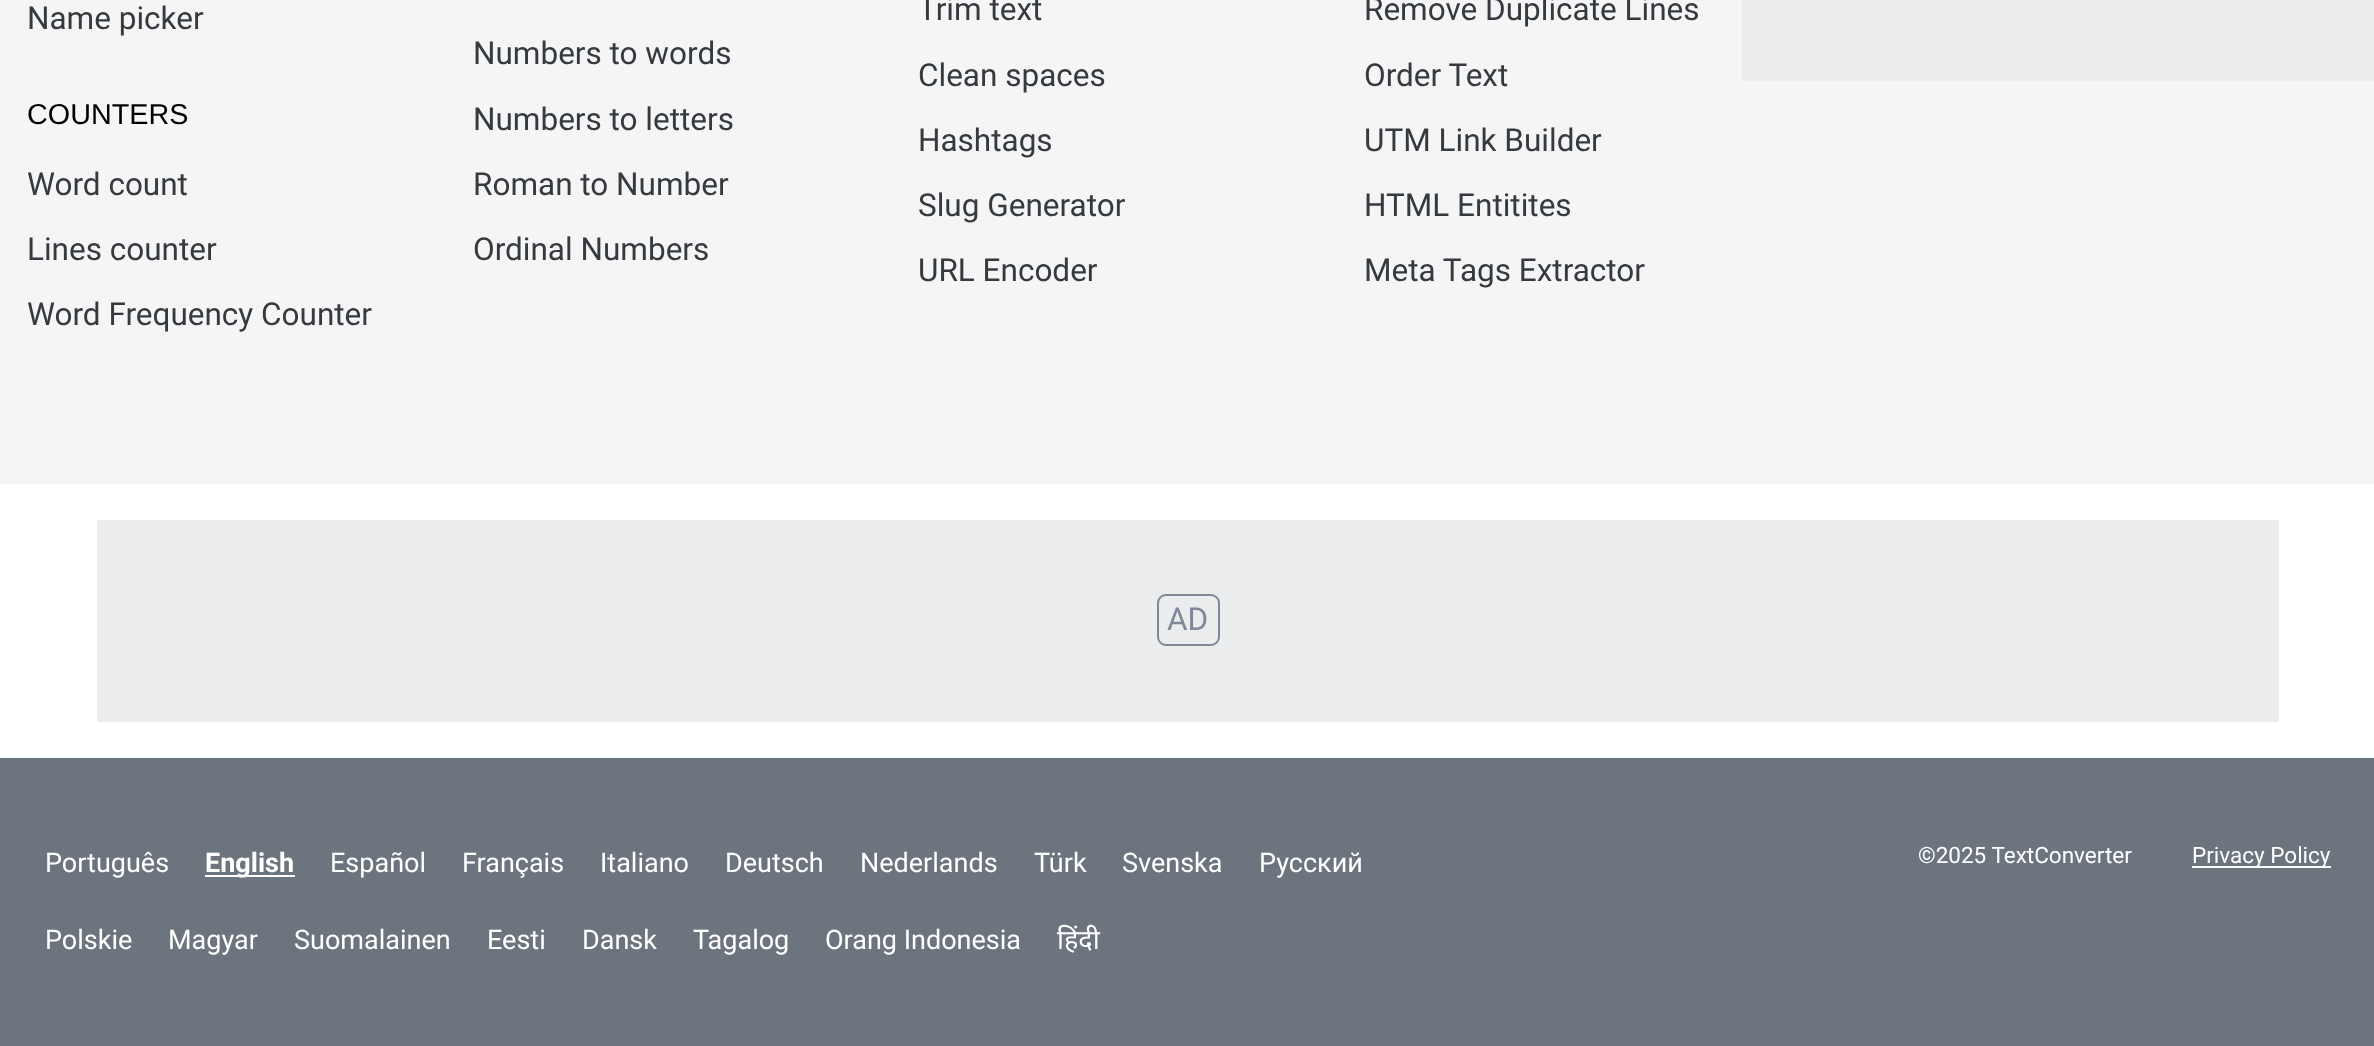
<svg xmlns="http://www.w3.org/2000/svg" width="2374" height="1046">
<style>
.a{font:31.5px Roboto;fill:#343a40}
.b{font:28.75px Liberation Sans;fill:#000}
.c{font:31.5px Roboto;fill:#7f8896}
.d{font:27px Roboto;fill:#fff}
.e{font:bold 27px Roboto;fill:#fff}
.f{font:27px Noto Sans;fill:#fff}
.g{font:22.5px Roboto;fill:#fff}
</style>
<rect width="100%" height="100%" fill="#fff"/>
<path fill="#f5f5f5" d="M0 0h2374v484H0z"/>
<path fill="#ebecee" d="M1742 0h632v81H1742z"/>
<path fill="#ebecee" d="M97 520h2182v202H97z"/>
<rect fill="none" stroke="#7f8896" stroke-width="2" x="1158" y="595" width="61" height="50" rx="8"/>
<path fill="#6c757d" d="M0 758h2374v288H0z"/>
<path fill="#fff" d="M205 875h90v2H205z"/>
<path fill="#fff" d="M2192 866h139v2H2192z"/>
<text class="a" x="27" y="29">Name picker</text>
<text class="b" x="27" y="124">COUNTERS</text>
<text class="a" x="27" y="195">Word count</text>
<text class="a" x="27" y="260">Lines counter</text>
<text class="a" x="27" y="325">Word Frequency Counter</text>
<text class="a" x="473" y="64">Numbers to words</text>
<text class="a" x="473" y="130">Numbers to letters</text>
<text class="a" x="473" y="195">Roman to Number</text>
<text class="a" x="473" y="260">Ordinal Numbers</text>
<text class="a" x="918" y="20">Trim text</text>
<text class="a" x="918" y="86">Clean spaces</text>
<text class="a" x="918" y="151">Hashtags</text>
<text class="a" x="918" y="216">Slug Generator</text>
<text class="a" x="918" y="281">URL Encoder</text>
<text class="a" x="1364" y="20">Remove Duplicate Lines</text>
<text class="a" x="1364" y="86">Order Text</text>
<text class="a" x="1364" y="151">UTM Link Builder</text>
<text class="a" x="1364" y="216">HTML Entitites</text>
<text class="a" x="1364" y="281">Meta Tags Extractor</text>
<text class="c" x="1167" y="630">AD</text>
<text class="d" x="45" y="872">Português</text>
<text class="e" x="205" y="872">English</text>
<text class="d" x="330" y="872">Español</text>
<text class="d" x="462" y="872">Français</text>
<text class="d" x="600" y="872">Italiano</text>
<text class="d" x="725" y="872">Deutsch</text>
<text class="d" x="860" y="872">Nederlands</text>
<text class="d" x="1034" y="872">Türk</text>
<text class="d" x="1122" y="872">Svenska</text>
<text class="d" x="1259" y="872">Русский</text>
<text class="d" x="45" y="949">Polskie</text>
<text class="d" x="168" y="949">Magyar</text>
<text class="d" x="294" y="949">Suomalainen</text>
<text class="d" x="487" y="949">Eesti</text>
<text class="d" x="582" y="949">Dansk</text>
<text class="d" x="693" y="949">Tagalog</text>
<text class="d" x="825" y="949">Orang Indonesia</text>
<text class="f" x="1057" y="949">हिंदी</text>
<text class="g" x="1918" y="863">©2025 TextConverter</text>
<text class="g" x="2192" y="863">Privacy Policy</text>
</svg>
